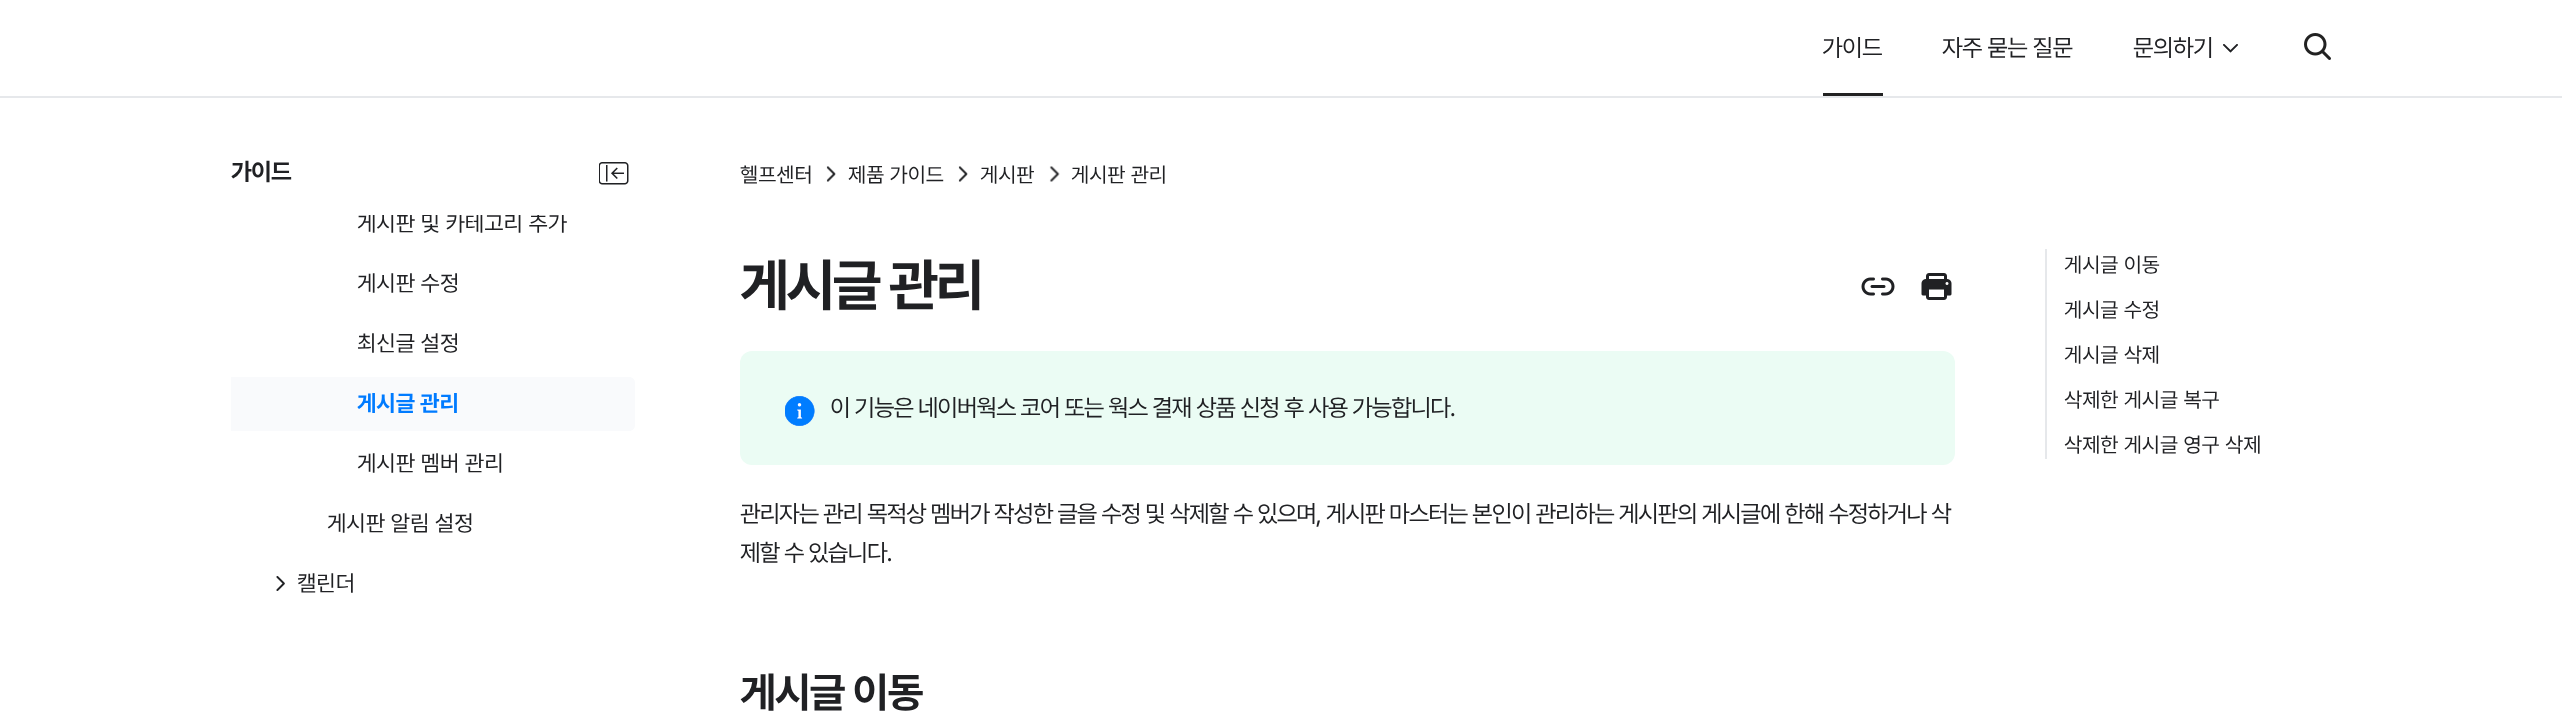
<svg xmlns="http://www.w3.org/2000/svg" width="2562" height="725">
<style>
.a{font:24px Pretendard;letter-spacing:-0.75px;fill:#202124}
.b{font:bold 24px Pretendard;letter-spacing:-0.75px;fill:#202124}
.c{font:22.5px Pretendard;letter-spacing:-0.1px;fill:#202124}
.d{font:bold 22.5px Pretendard;letter-spacing:-0.1px;fill:#007bff}
.e{font:21px Pretendard;fill:#202124}
.f{font:bold 57px Pretendard;letter-spacing:-3px;fill:#202124}
.g{font:24px Pretendard;letter-spacing:-1.2px;fill:#202124}
.h{font:bold 42px Pretendard;letter-spacing:-1.5px;fill:#202124}
</style>
<defs>
<clipPath id="clip1"><path d="M231 215h404v379H231z"/></clipPath>
</defs>
<rect width="100%" height="100%" fill="#fff"/>
<path fill="#e6e8eb" d="M0 96h2562v2H0z"/>
<path fill="#222" d="M1823 93h60v3H1823z"/>
<image href="1.png" x="2223" y="44" width="15" height="9"/>
<image href="2.png" x="2304" y="33" width="27" height="27"/>
<image href="3.png" x="599" y="162" width="30" height="23"/>
<path fill="#f9fafc" d="M231 377h398c3.5 0 6 2.5 6 6v42c0 3.5-2.5 6-6 6h-398z"/>
<image href="4.png" x="276" y="576" width="9" height="15"/>
<image href="5.png" x="826" y="166" width="10" height="16"/>
<image href="5.png" x="958" y="166" width="10" height="16"/>
<image href="6.png" x="1049" y="166" width="11" height="16"/>
<image href="7.png" x="1861" y="277" width="34" height="19"/>
<image href="8.png" x="1921" y="273" width="31" height="27"/>
<rect fill="#ebfcf4" x="740" y="351" width="1215" height="114" rx="12"/>
<image href="9.png" x="785" y="396" width="30" height="30"/>
<path fill="#e6e8eb" d="M2045 249h2v210H2045z"/>
<text class="a" x="1822" y="56">가이드</text>
<text class="a" x="1942" y="56">자주 묻는 질문</text>
<text class="a" x="2133" y="56">문의하기</text>
<text class="b" x="231" y="180">가이드</text>
<g clip-path="url(#clip1)">
<text class="c" x="357" y="231">게시판 및 카테고리 추가</text>
</g>
<text class="c" x="357" y="291">게시판 수정</text>
<text class="c" x="357" y="351">최신글 설정</text>
<text class="d" x="357" y="411">게시글 관리</text>
<text class="c" x="357" y="471">게시판 멤버 관리</text>
<text class="c" x="327" y="531">게시판 알림 설정</text>
<text class="c" x="297" y="591">캘린더</text>
<text class="e" x="740" y="182">헬프센터</text>
<text class="e" x="848" y="182">제품 가이드</text>
<text class="e" x="980" y="182">게시판</text>
<text class="e" x="1071" y="182">게시판 관리</text>
<text class="f" x="740" y="305">게시글 관리</text>
<text class="g" x="830" y="416">이 기능은 네이버웍스 코어 또는 웍스 결재 상품 신청 후 사용 가능합니다.</text>
<text class="g" x="740" y="522">관리자는 관리 목적상 멤버가 작성한 글을 수정 및 삭제할 수 있으며, 게시판 마스터는 본인이 관리하는 게시판의 게시글에 한해 수정하거나 삭</text>
<text class="g" x="740" y="561">제할 수 있습니다.</text>
<text class="h" x="740" y="707">게시글 이동</text>
<text class="e" x="2064" y="272">게시글 이동</text>
<text class="e" x="2064" y="317">게시글 수정</text>
<text class="e" x="2064" y="362">게시글 삭제</text>
<text class="e" x="2064" y="407">삭제한 게시글 복구</text>
<text class="e" x="2064" y="452">삭제한 게시글 영구 삭제</text>
</svg>
